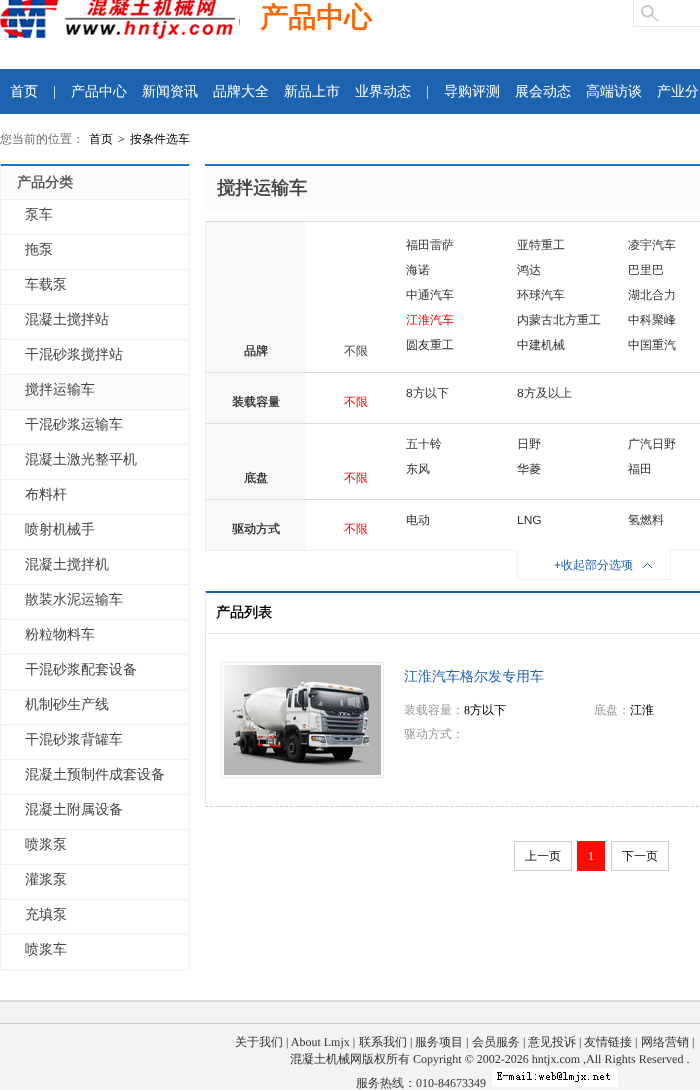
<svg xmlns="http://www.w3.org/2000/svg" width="700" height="1090">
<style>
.a{font:bold 28px WenQuanYi Zen Hei;fill:#f60}
.b{font:500 14px WenQuanYi Zen Hei;fill:#fff}
.c{font:14px Liberation Serif;fill:#fff}
.d{font:500 12px WenQuanYi Zen Hei;fill:#6b6b6b}
.e{font:500 12px WenQuanYi Zen Hei;fill:#000}
.f{font:12px Liberation Serif;fill:#000}
.g{font:bold 14px WenQuanYi Zen Hei;fill:#585858}
.h{font:500 14px WenQuanYi Zen Hei;fill:#444}
.i{font:bold 18px WenQuanYi Zen Hei;fill:#444}
.j{font:bold 12px WenQuanYi Zen Hei;fill:#333}
.k{font:500 12px WenQuanYi Zen Hei;fill:#444}
.l{font:500 12px WenQuanYi Zen Hei;fill:#333}
.m{font:500 12px WenQuanYi Zen Hei;fill:#f00}
.n{font:12px Liberation Sans;fill:#333}
.o{font:12px Liberation Sans;fill:#1e63b0}
.p{font:500 12px WenQuanYi Zen Hei;fill:#1e63b0}
.q{font:bold 14px WenQuanYi Zen Hei;fill:#000}
.r{font:500 14px WenQuanYi Zen Hei;fill:#1e63b0}
.s{font:500 12px WenQuanYi Zen Hei;fill:#999}
.t{font:12px Liberation Serif;fill:#fff}
.u{font:12px Liberation Serif;fill:#333}
</style>
<defs>
<clipPath id="clip1"><path d="M0 200h190v35H0z"/></clipPath>
<clipPath id="clip2"><path d="M0 235h190v35H0z"/></clipPath>
<clipPath id="clip3"><path d="M0 270h190v35H0z"/></clipPath>
<clipPath id="clip4"><path d="M0 305h190v35H0z"/></clipPath>
<clipPath id="clip5"><path d="M0 340h190v35H0z"/></clipPath>
<clipPath id="clip6"><path d="M0 375h190v35H0z"/></clipPath>
<clipPath id="clip7"><path d="M0 410h190v35H0z"/></clipPath>
<clipPath id="clip8"><path d="M0 445h190v35H0z"/></clipPath>
<clipPath id="clip9"><path d="M0 480h190v35H0z"/></clipPath>
<clipPath id="clip10"><path d="M0 515h190v35H0z"/></clipPath>
<clipPath id="clip11"><path d="M0 550h190v35H0z"/></clipPath>
<clipPath id="clip12"><path d="M0 585h190v35H0z"/></clipPath>
<clipPath id="clip13"><path d="M0 620h190v35H0z"/></clipPath>
<clipPath id="clip14"><path d="M0 655h190v35H0z"/></clipPath>
<clipPath id="clip15"><path d="M0 690h190v35H0z"/></clipPath>
<clipPath id="clip16"><path d="M0 725h190v35H0z"/></clipPath>
<clipPath id="clip17"><path d="M0 760h190v35H0z"/></clipPath>
<clipPath id="clip18"><path d="M0 795h190v35H0z"/></clipPath>
<clipPath id="clip19"><path d="M0 830h190v35H0z"/></clipPath>
<clipPath id="clip20"><path d="M0 865h190v35H0z"/></clipPath>
<clipPath id="clip21"><path d="M0 900h190v35H0z"/></clipPath>
<clipPath id="clip22"><path d="M0 935h190v35H0z"/></clipPath>
</defs>
<rect width="100%" height="100%" fill="#fff"/>
<image href="1.png" x="0" y="0" width="240" height="39"/>
<image href="2.png" x="641" y="5" width="18" height="17"/>
<path fill="#e7e7e7" d="M633 26h67v1H633z"/>
<path fill="#e7e7e7" d="M633 0h1v27H633z"/>
<path fill="#1e63b0" d="M0 69h700v45H0z"/>
<path fill="#fbfbfb" d="M1 166h188v33H1z"/>
<path fill="#1f74cf" d="M0 164h190l-1 2h-188z"/>
<path fill="#efefef" d="M190 164v36l-1-1v-33z"/>
<path fill="#efefef" d="M0 199h190v1H0z"/>
<path fill="#efefef" d="M0 200v-36l1 2v33z"/>
<g clip-path="url(#clip1)">
<path fill="none" stroke="#efefef" d="M0.5 199.5h189v35H0.5z"/>
</g>
<g clip-path="url(#clip2)">
<path fill="none" stroke="#efefef" d="M0.5 234.5h189v35H0.5z"/>
</g>
<g clip-path="url(#clip3)">
<path fill="none" stroke="#efefef" d="M0.5 269.5h189v35H0.5z"/>
</g>
<g clip-path="url(#clip4)">
<path fill="none" stroke="#efefef" d="M0.5 304.5h189v35H0.5z"/>
</g>
<g clip-path="url(#clip5)">
<path fill="none" stroke="#efefef" d="M0.5 339.5h189v35H0.5z"/>
</g>
<path fill="#fbfbfb" d="M1 375h188v34H1z"/>
<g clip-path="url(#clip6)">
<path fill="none" stroke="#efefef" d="M0.5 374.5h189v35H0.5z"/>
</g>
<g clip-path="url(#clip7)">
<path fill="none" stroke="#efefef" d="M0.5 409.5h189v35H0.5z"/>
</g>
<g clip-path="url(#clip8)">
<path fill="none" stroke="#efefef" d="M0.5 444.5h189v35H0.5z"/>
</g>
<g clip-path="url(#clip9)">
<path fill="none" stroke="#efefef" d="M0.5 479.5h189v35H0.5z"/>
</g>
<g clip-path="url(#clip10)">
<path fill="none" stroke="#efefef" d="M0.5 514.5h189v35H0.5z"/>
</g>
<g clip-path="url(#clip11)">
<path fill="none" stroke="#efefef" d="M0.5 549.5h189v35H0.5z"/>
</g>
<g clip-path="url(#clip12)">
<path fill="none" stroke="#efefef" d="M0.5 584.5h189v35H0.5z"/>
</g>
<g clip-path="url(#clip13)">
<path fill="none" stroke="#efefef" d="M0.5 619.5h189v35H0.5z"/>
</g>
<g clip-path="url(#clip14)">
<path fill="none" stroke="#efefef" d="M0.5 654.5h189v35H0.5z"/>
</g>
<g clip-path="url(#clip15)">
<path fill="none" stroke="#efefef" d="M0.5 689.5h189v35H0.5z"/>
</g>
<g clip-path="url(#clip16)">
<path fill="none" stroke="#efefef" d="M0.5 724.5h189v35H0.5z"/>
</g>
<g clip-path="url(#clip17)">
<path fill="none" stroke="#efefef" d="M0.5 759.5h189v35H0.5z"/>
</g>
<g clip-path="url(#clip18)">
<path fill="none" stroke="#efefef" d="M0.5 794.5h189v35H0.5z"/>
</g>
<g clip-path="url(#clip19)">
<path fill="none" stroke="#efefef" d="M0.5 829.5h189v35H0.5z"/>
</g>
<g clip-path="url(#clip20)">
<path fill="none" stroke="#efefef" d="M0.5 864.5h189v35H0.5z"/>
</g>
<g clip-path="url(#clip21)">
<path fill="none" stroke="#efefef" d="M0.5 899.5h189v35H0.5z"/>
</g>
<g clip-path="url(#clip22)">
<path fill="none" stroke="#efefef" d="M0.5 934.5h189v35H0.5z"/>
</g>
<path fill="#fbfbfb" d="M205 166h495v45H205z"/>
<path fill="#1f74cf" d="M205 164h495v2H205z"/>
<path fill="#efefef" d="M205 221h1v152H205z"/>
<path fill="#f8f8f8" d="M206 222h100v150H206z"/>
<path fill="#ddd" d="M205 221h495v1H205z"/>
<path fill="#efefef" d="M205 550h495v1H205z"/>
<path fill="#efefef" d="M205 372h1v179H205z"/>
<path fill="#ddd" d="M205 372h495v1H205z"/>
<path fill="#f8f8f8" d="M206 373h100v50H206z"/>
<path fill="#ddd" d="M205 423h495v1H205z"/>
<path fill="#f8f8f8" d="M206 424h100v75H206z"/>
<path fill="#ddd" d="M205 499h495v1H205z"/>
<path fill="#f8f8f8" d="M206 500h100v50H206z"/>
<path fill="#fff" d="M517 550h154v1H517z"/>
<path fill="#efefef" d="M670 550h1v30H670z"/>
<path fill="#efefef" d="M517 579h154v1H517z"/>
<path fill="#efefef" d="M517 550h1v30H517z"/>
<image href="3.png" x="643" y="563" width="9" height="5"/>
<path fill="#1e63b0" d="M205 591h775l-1 2h-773z"/>
<path fill="#e9e9e9" d="M205 633h495v1H205z"/>
<path fill="#e9e9e9" d="M205 634v-43l1 2v40z"/>
<path fill="none" stroke="#c9c9c9" stroke-dasharray="3 2.01" d="M205 806.5h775"/>
<path fill="#e3e3e3" d="M205 634h1v173H205z"/>
<path fill="none" stroke="#ebebeb" d="M221.5 662.5h162v115H221.5z"/>
<image href="4.png" x="224" y="665" width="157" height="110"/>
<path fill="none" stroke="#ccc" d="M514.5 841.5h57v29H514.5z"/>
<path fill="#ff0900" d="M577 841h28v30H577z"/>
<path fill="none" stroke="#ccc" d="M611.5 841.5h57v29H611.5z"/>
<path fill="#f3f3f3" d="M0 1002h700v88H0z"/>
<path fill="#dbdbdb" d="M0 1000h700v2H0z"/>
<path fill="#ccc" d="M0 1023h700v1H0z"/>
<image href="5.png" x="492" y="1068" width="126" height="19"/>
<text class="a" x="260" y="27">产品中心</text>
<text class="b" x="10" y="96">首页</text>
<text class="c" x="53" y="96">|</text>
<text class="b" x="71" y="96">产品中心</text>
<text class="b" x="142" y="96">新闻资讯</text>
<text class="b" x="213" y="96">品牌大全</text>
<text class="b" x="284" y="96">新品上市</text>
<text class="b" x="355" y="96">业界动态</text>
<text class="c" x="426" y="96">|</text>
<text class="b" x="444" y="96">导购评测</text>
<text class="b" x="515" y="96">展会动态</text>
<text class="b" x="586" y="96">高端访谈</text>
<text class="b" x="657" y="96">产业分</text>
<text class="d" x="0" y="143">您当前的位置：</text>
<text class="e" x="89" y="143">首页</text>
<text class="f" x="118" y="143">&gt;</text>
<text class="e" x="130" y="143">按条件选车</text>
<text class="g" x="17" y="187">产品分类</text>
<text class="h" x="25" y="219">泵车</text>
<text class="h" x="25" y="254">拖泵</text>
<text class="h" x="25" y="289">车载泵</text>
<text class="h" x="25" y="324">混凝土搅拌站</text>
<text class="h" x="25" y="359">干混砂浆搅拌站</text>
<text class="h" x="25" y="394">搅拌运输车</text>
<text class="h" x="25" y="429">干混砂浆运输车</text>
<text class="h" x="25" y="464">混凝土激光整平机</text>
<text class="h" x="25" y="499">布料杆</text>
<text class="h" x="25" y="534">喷射机械手</text>
<text class="h" x="25" y="569">混凝土搅拌机</text>
<text class="h" x="25" y="604">散装水泥运输车</text>
<text class="h" x="25" y="639">粉粒物料车</text>
<text class="h" x="25" y="674">干混砂浆配套设备</text>
<text class="h" x="25" y="709">机制砂生产线</text>
<text class="h" x="25" y="744">干混砂浆背罐车</text>
<text class="h" x="25" y="779">混凝土预制件成套设备</text>
<text class="h" x="25" y="814">混凝土附属设备</text>
<text class="h" x="25" y="849">喷浆泵</text>
<text class="h" x="25" y="884">灌浆泵</text>
<text class="h" x="25" y="919">充填泵</text>
<text class="h" x="25" y="954">喷浆车</text>
<text class="i" x="217" y="194">搅拌运输车</text>
<text class="j" x="244" y="355">品牌</text>
<text class="k" x="344" y="355">不限</text>
<text class="l" x="406" y="249">福田雷萨</text>
<text class="l" x="517" y="249">亚特重工</text>
<text class="l" x="628" y="249">凌宇汽车</text>
<text class="l" x="406" y="274">海诺</text>
<text class="l" x="517" y="274">鸿达</text>
<text class="l" x="628" y="274">巴里巴</text>
<text class="l" x="406" y="299">中通汽车</text>
<text class="l" x="517" y="299">环球汽车</text>
<text class="l" x="628" y="299">湖北合力</text>
<text class="m" x="406" y="324">江淮汽车</text>
<text class="l" x="517" y="324">内蒙古北方重工</text>
<text class="l" x="628" y="324">中科聚峰</text>
<text class="l" x="406" y="349">圆友重工</text>
<text class="l" x="517" y="349">中建机械</text>
<text class="l" x="628" y="349">中国重汽</text>
<text class="n" x="406" y="397">8</text>
<text class="l" x="413" y="397">方以下</text>
<text class="n" x="517" y="397">8</text>
<text class="l" x="524" y="397">方及以上</text>
<text class="j" x="232" y="406">装载容量</text>
<text class="m" x="344" y="406">不限</text>
<text class="l" x="406" y="448">五十铃</text>
<text class="l" x="517" y="448">日野</text>
<text class="l" x="628" y="448">广汽日野</text>
<text class="l" x="406" y="473">东风</text>
<text class="l" x="517" y="473">华菱</text>
<text class="l" x="628" y="473">福田</text>
<text class="j" x="244" y="482">底盘</text>
<text class="m" x="344" y="482">不限</text>
<text class="l" x="406" y="524">电动</text>
<text class="n" x="517" y="524">LNG</text>
<text class="l" x="628" y="524">氢燃料</text>
<text class="j" x="232" y="533">驱动方式</text>
<text class="m" x="344" y="533">不限</text>
<text class="o" x="554" y="569">+</text>
<text class="p" x="561" y="569">收起部分选项</text>
<text class="q" x="216" y="617">产品列表</text>
<text class="r" x="404" y="681">江淮汽车格尔发专用车</text>
<text class="s" x="404" y="714">装载容量：</text>
<text class="f" x="464" y="714">8</text>
<text class="e" x="470" y="714">方以下</text>
<text class="s" x="594" y="714">底盘：</text>
<text class="e" x="630" y="714">江淮</text>
<text class="s" x="404" y="738">驱动方式：</text>
<text class="e" x="525" y="860">上一页</text>
<text class="t" x="588" y="860">1</text>
<text class="e" x="622" y="860">下一页</text>
<text class="l" x="235" y="1046">关于我们</text>
<text class="u" x="286" y="1046">| About Lmjx |</text>
<text class="l" x="359" y="1046">联系我们</text>
<text class="u" x="410" y="1046">|</text>
<text class="l" x="415" y="1046">服务项目</text>
<text class="u" x="466" y="1046">|</text>
<text class="l" x="472" y="1046">会员服务</text>
<text class="u" x="523" y="1046">|</text>
<text class="l" x="528" y="1046">意见投诉</text>
<text class="u" x="579" y="1046">|</text>
<text class="l" x="584" y="1046">友情链接</text>
<text class="u" x="635" y="1046">|</text>
<text class="l" x="641" y="1046">网络营销</text>
<text class="u" x="692" y="1046">|</text>
<text class="l" x="290" y="1063">混凝土机械网版权所有</text>
<text class="u" x="413" y="1063">Copyright © 2002-2026 hntjx.com ,All Rights Reserved .</text>
<text class="l" x="356" y="1087">服务热线：</text>
<text class="u" x="416" y="1087">010-84673349</text>
</svg>
